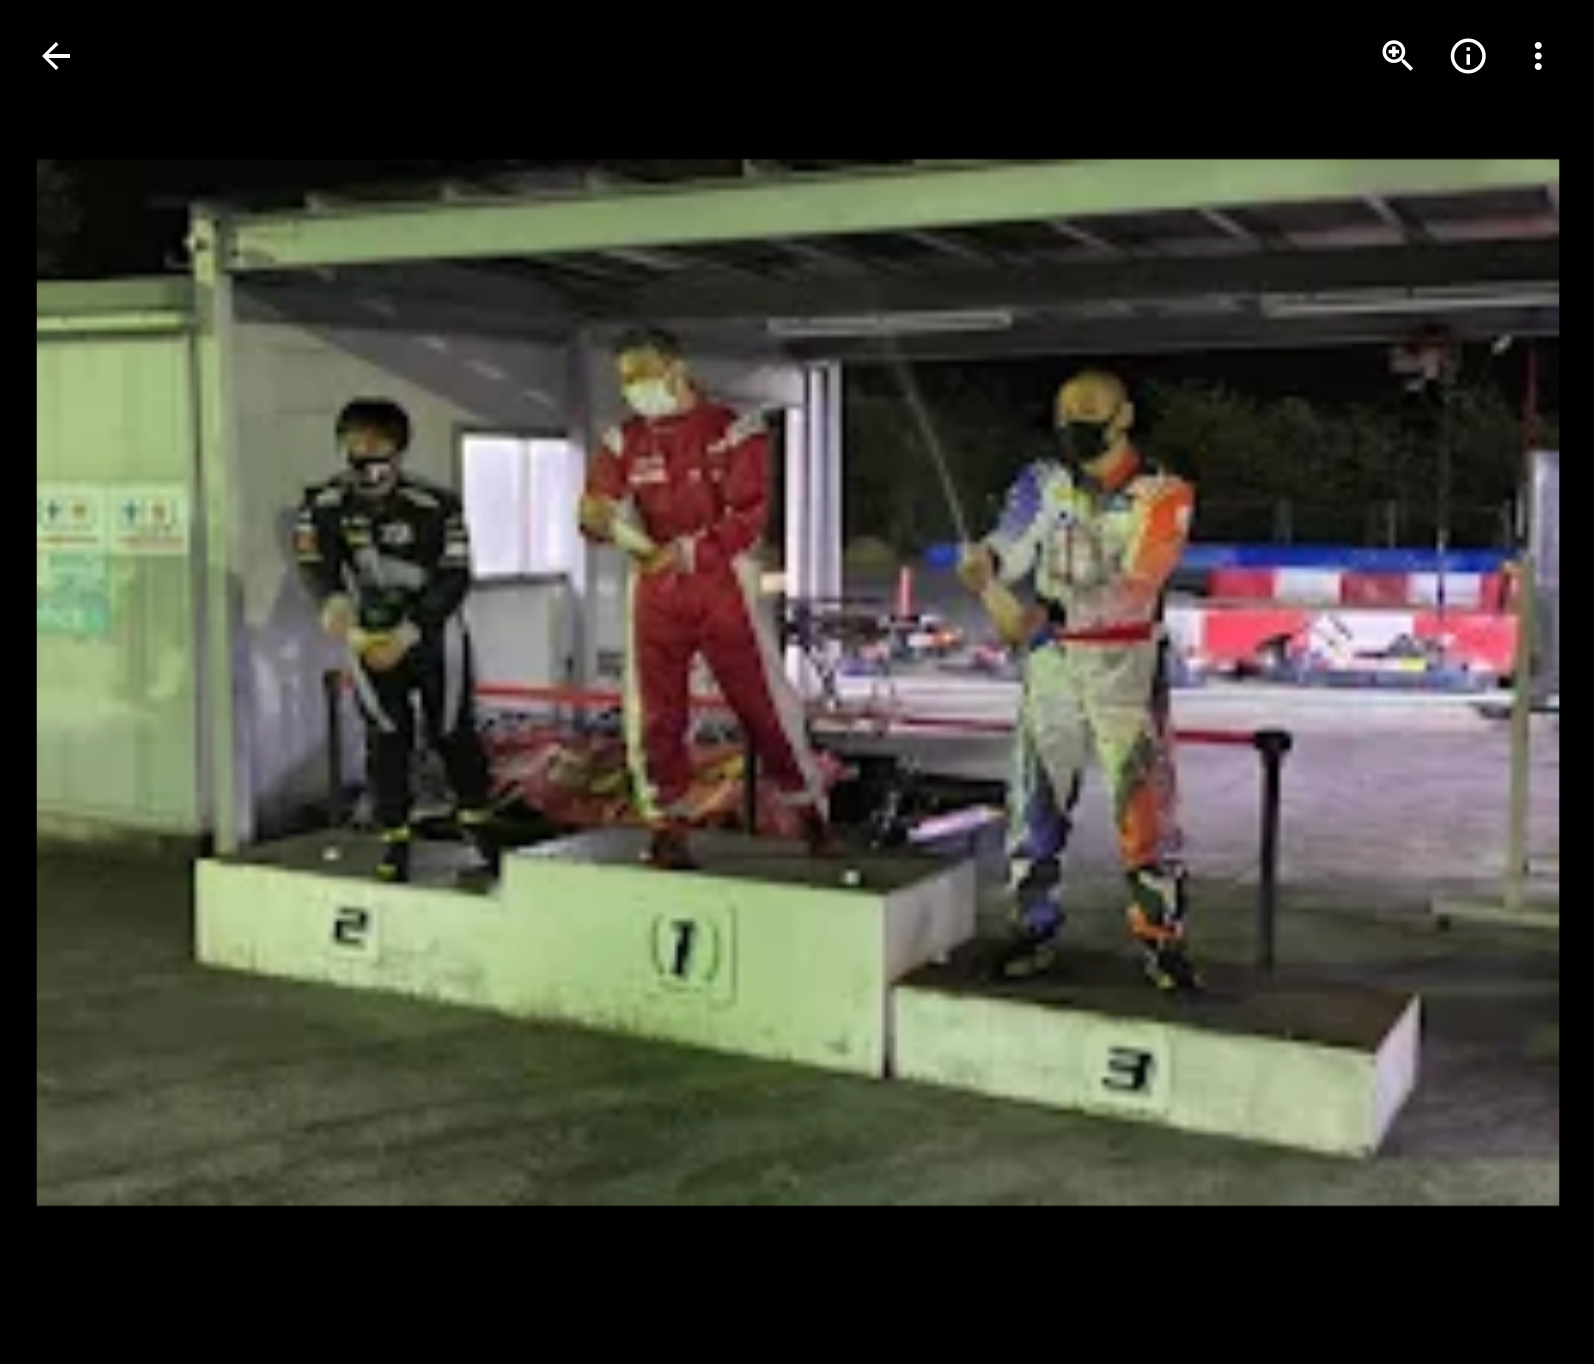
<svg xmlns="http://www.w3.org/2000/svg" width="1594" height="1364">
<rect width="100%" height="100%" fill="#000"/>
<path fill="#fff" d="M70 54h-21.5l10-9.5l-2.5-2.5l-14 14l14 14l2.5-2.5l-10-9.5h21.5z"/>
<image href="1.png" x="1382" y="40" width="31" height="31"/>
<image href="2.png" x="1450" y="38" width="36" height="36"/>
<image href="3.png" x="1534" y="42" width="8" height="28"/>
<image href="4.png" x="36" y="158" width="1524" height="1049"/>
</svg>
